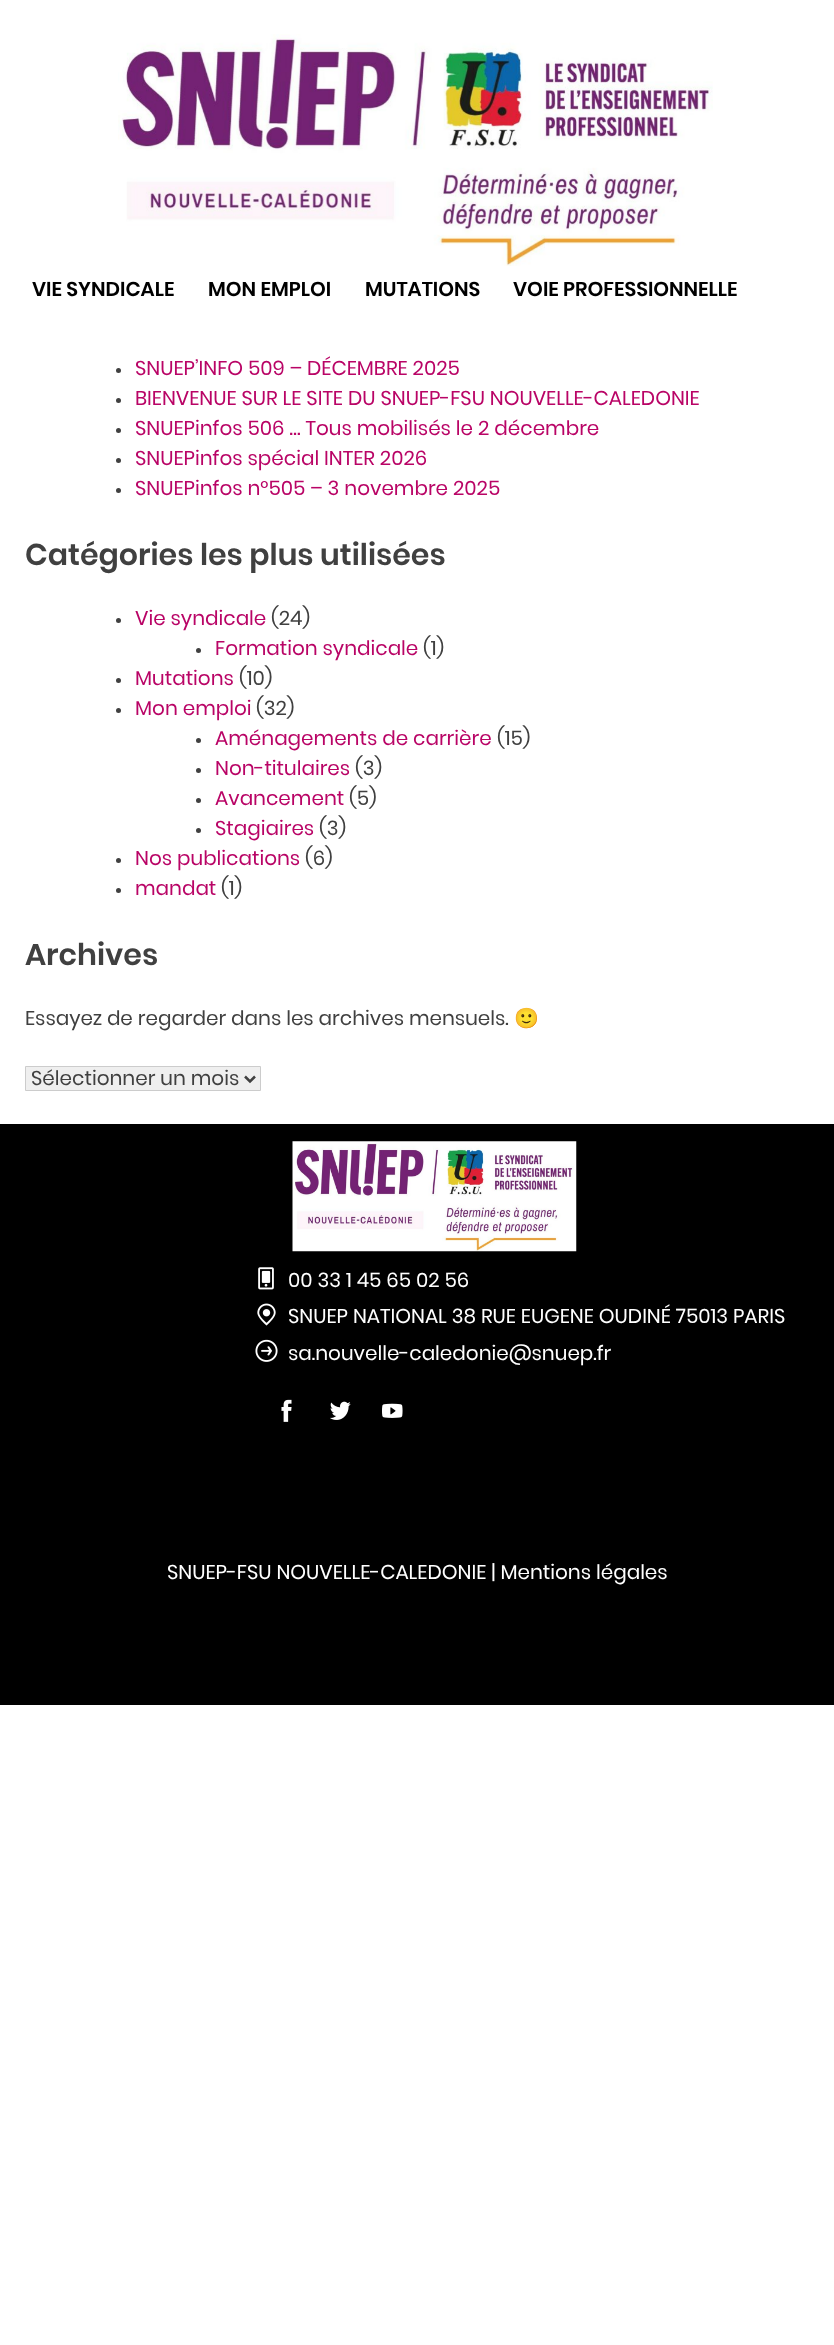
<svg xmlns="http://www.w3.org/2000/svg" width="834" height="2345">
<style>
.a{font:600 20px Poppins;fill:#000}
.b{font:20px Poppins;fill:#b90466}
.c{font:600 30px Poppins;fill:#404040}
.d{font:20px Poppins;fill:#404040}
.e{font:20px Noto Color Emoji;fill:#404040}
.f{font:20px Poppins;fill:#fff}
</style>
<rect width="100%" height="100%" fill="#fff"/>
<image href="1.png" x="118" y="34" width="595" height="232"/>
<circle fill="#404040" cx="118.5" cy="370.5" r="2.5"/>
<circle fill="#404040" cx="118.5" cy="400.5" r="2.5"/>
<circle fill="#404040" cx="118.5" cy="430.5" r="2.5"/>
<circle fill="#404040" cx="118.5" cy="460.5" r="2.5"/>
<circle fill="#404040" cx="118.5" cy="490.5" r="2.5"/>
<circle fill="#404040" cx="118.5" cy="620.5" r="2.5"/>
<circle fill="#404040" cx="198.5" cy="650.5" r="2.5"/>
<circle fill="#404040" cx="118.5" cy="680.5" r="2.5"/>
<circle fill="#404040" cx="118.5" cy="710.5" r="2.5"/>
<circle fill="#404040" cx="198.5" cy="740.5" r="2.5"/>
<circle fill="#404040" cx="198.5" cy="770.5" r="2.5"/>
<circle fill="#404040" cx="198.5" cy="800.5" r="2.5"/>
<circle fill="#404040" cx="198.5" cy="830.5" r="2.5"/>
<circle fill="#404040" cx="118.5" cy="860.5" r="2.5"/>
<circle fill="#404040" cx="118.5" cy="890.5" r="2.5"/>
<path fill="#efefef" stroke="#ccc" d="M25.5 1066.5h235v24H25.5z"/>
<path fill="none" stroke="#404040" stroke-width="2.5" d="M245 1076.5l5 5l5-5"/>
<path fill="#000" d="M0 1124h834v581H0z"/>
<image href="2.png" x="292" y="1141" width="285" height="111"/>
<image href="3.png" x="258" y="1267" width="16" height="23"/>
<image href="4.png" x="257" y="1303" width="19" height="23"/>
<image href="5.png" x="255" y="1339" width="23" height="23"/>
<image href="6.png" x="281" y="1399" width="11" height="23"/>
<image href="7.png" x="330" y="1401" width="21" height="19"/>
<image href="8.png" x="382" y="1403" width="21" height="15"/>
<text class="a" x="32" y="296">VIE SYNDICALE</text>
<text class="a" x="208" y="296">MON EMPLOI</text>
<text class="a" x="365" y="296">MUTATIONS</text>
<text class="a" x="513" y="296">VOIE PROFESSIONNELLE</text>
<text class="b" x="135" y="375">SNUEP’INFO 509 – DÉCEMBRE 2025</text>
<text class="b" x="135" y="405">BIENVENUE SUR LE SITE DU SNUEP-FSU NOUVELLE-CALEDONIE</text>
<text class="b" x="135" y="435">SNUEPinfos 506 … Tous mobilisés le 2 décembre</text>
<text class="b" x="135" y="465">SNUEPinfos spécial INTER 2026</text>
<text class="b" x="135" y="495">SNUEPinfos n°505 – 3 novembre 2025</text>
<text class="c" x="25" y="565">Catégories les plus utilisées</text>
<text class="b" x="135" y="625">Vie syndicale</text>
<text class="d" x="271" y="625">(24)</text>
<text class="b" x="215" y="655">Formation syndicale</text>
<text class="d" x="423" y="655">(1)</text>
<text class="b" x="135" y="685">Mutations</text>
<text class="d" x="239" y="685">(10)</text>
<text class="b" x="135" y="715">Mon emploi</text>
<text class="d" x="256" y="715">(32)</text>
<text class="b" x="215" y="745">Aménagements de carrière</text>
<text class="d" x="497" y="745">(15)</text>
<text class="b" x="215" y="775">Non-titulaires</text>
<text class="d" x="355" y="775">(3)</text>
<text class="b" x="215" y="805">Avancement</text>
<text class="d" x="349" y="805">(5)</text>
<text class="b" x="215" y="835">Stagiaires</text>
<text class="d" x="319" y="835">(3)</text>
<text class="b" x="135" y="865">Nos publications</text>
<text class="d" x="305" y="865">(6)</text>
<text class="b" x="135" y="895">mandat</text>
<text class="d" x="221" y="895">(1)</text>
<text class="c" x="25" y="965">Archives</text>
<text class="d" x="25" y="1025">Essayez de regarder dans les archives mensuels.</text>
<text class="e" x="514" y="1025">🙂</text>
<text class="d" x="31" y="1085">Sélectionner un mois</text>
<text class="f" x="288" y="1287">00 33 1 45 65 02 56</text>
<text class="f" x="288" y="1323">SNUEP NATIONAL 38 RUE EUGENE OUDINÉ 75013 PARIS</text>
<text class="f" x="288" y="1360">sa.nouvelle-caledonie@snuep.fr</text>
<text class="f" x="167" y="1579">SNUEP-FSU NOUVELLE-CALEDONIE | Mentions légales</text>
</svg>
